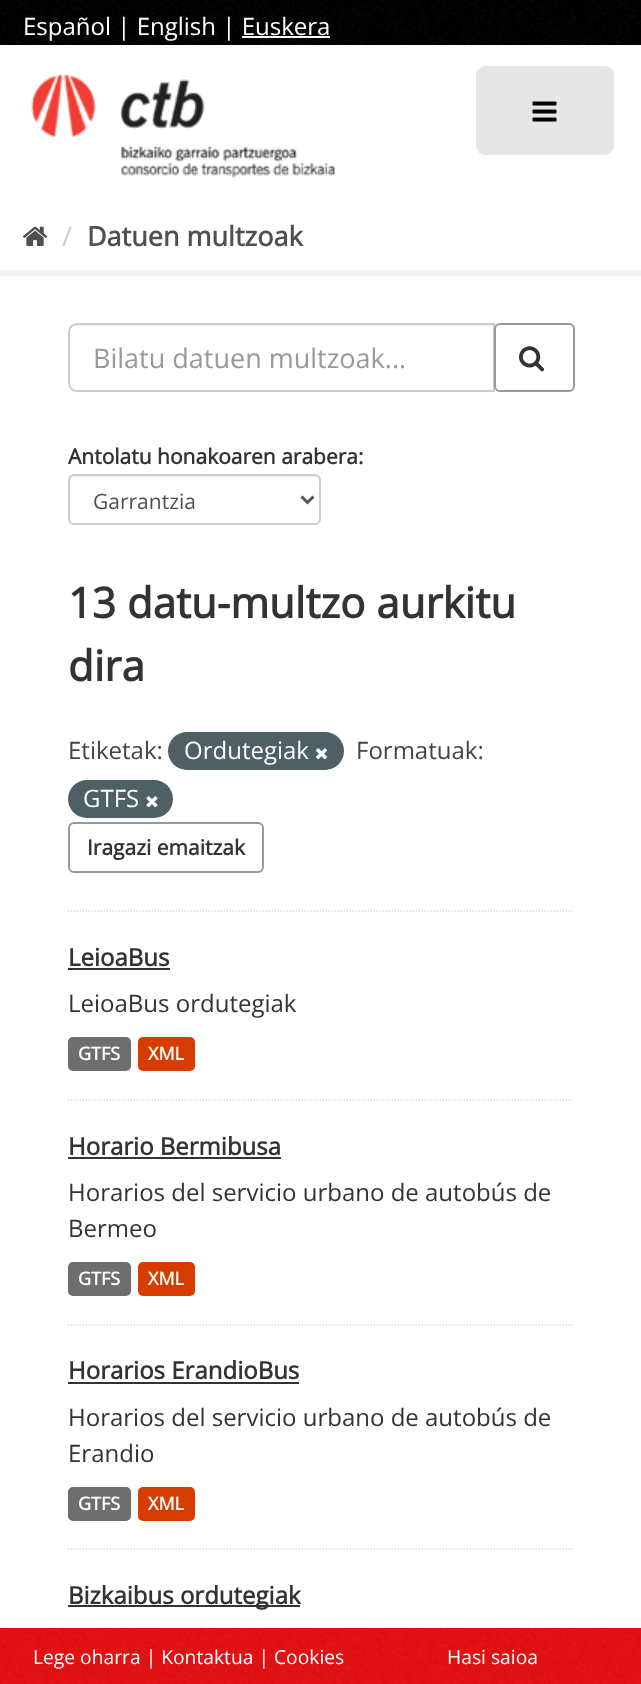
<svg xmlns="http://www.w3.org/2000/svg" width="641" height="1684">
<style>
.a{font:24px Open Sans;fill:#fff}
.b{font:27px Open Sans;fill:#ccc}
.c{font:bold 27px Open Sans;fill:#505050}
.d{font:27px Open Sans;fill:#999}
.e{font:bold 21px Open Sans;fill:#333}
.f{font:21px Open Sans;fill:#505050}
.g{font:bold 42px Open Sans;fill:#333}
.h{font:24px Open Sans;fill:#444}
.i{font:bold 24px Open Sans;fill:#333}
.j{font:24px Open Sans;fill:#333}
.k{font:bold 18px Open Sans;fill:#fff}
.l{font:19.25px Open Sans;fill:#fff}
</style>
<rect width="100%" height="100%" fill="#fff"/>
<path fill="#000" d="M0 0h641v45H0z"/>
<image href="1.png" x="0" y="0" width="641" height="45"/>
<path fill="#fff" d="M242 36h88v2H242z"/>
<image href="2.png" x="31" y="74" width="304" height="104"/>
<rect fill="#e6e6e6" x="476" y="66" width="138" height="89" rx="9"/>
<image href="3.png" x="532" y="101" width="25" height="21"/>
<image href="4.png" x="22" y="226" width="26" height="20"/>
<path fill="none" stroke="#f2f2f2" stroke-width="6" d="M-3 273h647v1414H-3z"/>
<path fill="none" stroke="#ddd" stroke-width="1.5" stroke-dasharray="1.5 1.5" d="M67.5 911h507"/>
<path fill="#ececec" d="M76 326h418v-2h-417c-5 0-8 4-8 9c0-4 3-7 7-7z"/>
<path fill="none" stroke="#ccc" stroke-width="2" d="M77 324h417v67h-417c-4.5 0-8-3.5-8-8v-51c0-4.5 3.5-8 8-8z"/>
<rect fill="#fff" stroke="#999" stroke-width="2" x="495" y="324" width="79" height="67" rx="5"/>
<image href="5.png" x="519" y="346" width="26" height="26"/>
<path fill="#ececec" d="M74 477h241c2 0 5 2 5 5v-1c0-3-2-5-5-5h-241c-3 0-5 2-5 5v1c0-3 2-5 5-5z"/>
<rect fill="none" stroke="#ccc" stroke-width="2" x="69" y="475" width="251" height="49" rx="5"/>
<path fill="none" stroke="#555" stroke-width="3" d="M301.5 496.5l6 6l6-6"/>
<rect fill="#4e5f65" x="168" y="732" width="176" height="38" rx="19"/>
<image href="6.png" x="316" y="748" width="11" height="12"/>
<rect fill="#4e5f65" x="68" y="780" width="105" height="38" rx="19"/>
<image href="7.png" x="146" y="796" width="12" height="12"/>
<rect fill="none" stroke="#999" stroke-width="2" x="69" y="823" width="194" height="49" rx="5"/>
<path fill="none" stroke="#ddd" stroke-width="1.5" stroke-dasharray="1.5 1.5" d="M67.5 1100h507"/>
<path fill="#333" d="M68 968h102v2H68z"/>
<rect fill="#6e6e6e" x="68" y="1037" width="63" height="34" rx="5"/>
<rect fill="#d63b00" x="138" y="1037" width="57" height="34" rx="5"/>
<path fill="none" stroke="#ddd" stroke-width="1.5" stroke-dasharray="1.5 1.5" d="M67.5 1325h507"/>
<path fill="#333" d="M68 1157h213v2H68z"/>
<rect fill="#6e6e6e" x="68" y="1262" width="63" height="34" rx="5"/>
<rect fill="#d63b00" x="138" y="1262" width="57" height="34" rx="5"/>
<path fill="none" stroke="#ddd" stroke-width="1.5" stroke-dasharray="1.5 1.5" d="M67.5 1549h507"/>
<path fill="#333" d="M68 1382h231v2H68z"/>
<rect fill="#6e6e6e" x="68" y="1487" width="63" height="34" rx="5"/>
<rect fill="#d63b00" x="138" y="1487" width="57" height="34" rx="5"/>
<path fill="#333" d="M68 1605h232v2H68z"/>
<path fill="#e71113" d="M0 1628h641v56H0z"/>
<image href="8.png" x="0" y="1628" width="641" height="56"/>
<text class="a" x="23" y="35">Español | English | Euskera</text>
<text class="b" x="62" y="246">/</text>
<text class="c" x="87" y="246">Datuen multzoak</text>
<text class="d" x="93" y="368">Bilatu datuen multzoak...</text>
<text class="e" x="68" y="464">Antolatu honakoaren arabera:</text>
<text class="f" x="93" y="509">Garrantzia</text>
<text class="g" x="68" y="618">13 datu-multzo aurkitu</text>
<text class="g" x="68" y="681">dira</text>
<text class="h" x="68" y="759">Etiketak:</text>
<text class="a" x="184" y="759">Ordutegiak</text>
<text class="h" x="356" y="759">Formatuak:</text>
<text class="a" x="83" y="807">GTFS</text>
<text class="e" x="87" y="855">Iragazi emaitzak</text>
<text class="i" x="68" y="966">LeioaBus</text>
<text class="j" x="68" y="1012">LeioaBus ordutegiak</text>
<text class="k" x="78" y="1060">GTFS</text>
<text class="k" x="148" y="1060">XML</text>
<text class="i" x="68" y="1155">Horario Bermibusa</text>
<text class="j" x="68" y="1201">Horarios del servicio urbano de autobús de</text>
<text class="j" x="68" y="1237">Bermeo</text>
<text class="k" x="78" y="1285">GTFS</text>
<text class="k" x="148" y="1285">XML</text>
<text class="i" x="68" y="1379">Horarios ErandioBus</text>
<text class="j" x="68" y="1426">Horarios del servicio urbano de autobús de</text>
<text class="j" x="68" y="1462">Erandio</text>
<text class="k" x="78" y="1510">GTFS</text>
<text class="k" x="148" y="1510">XML</text>
<text class="i" x="68" y="1604">Bizkaibus ordutegiak</text>
<text class="l" x="33" y="1664">Lege oharra | Kontaktua | Cookies</text>
<text class="l" x="447" y="1664">Hasi saioa</text>
</svg>
